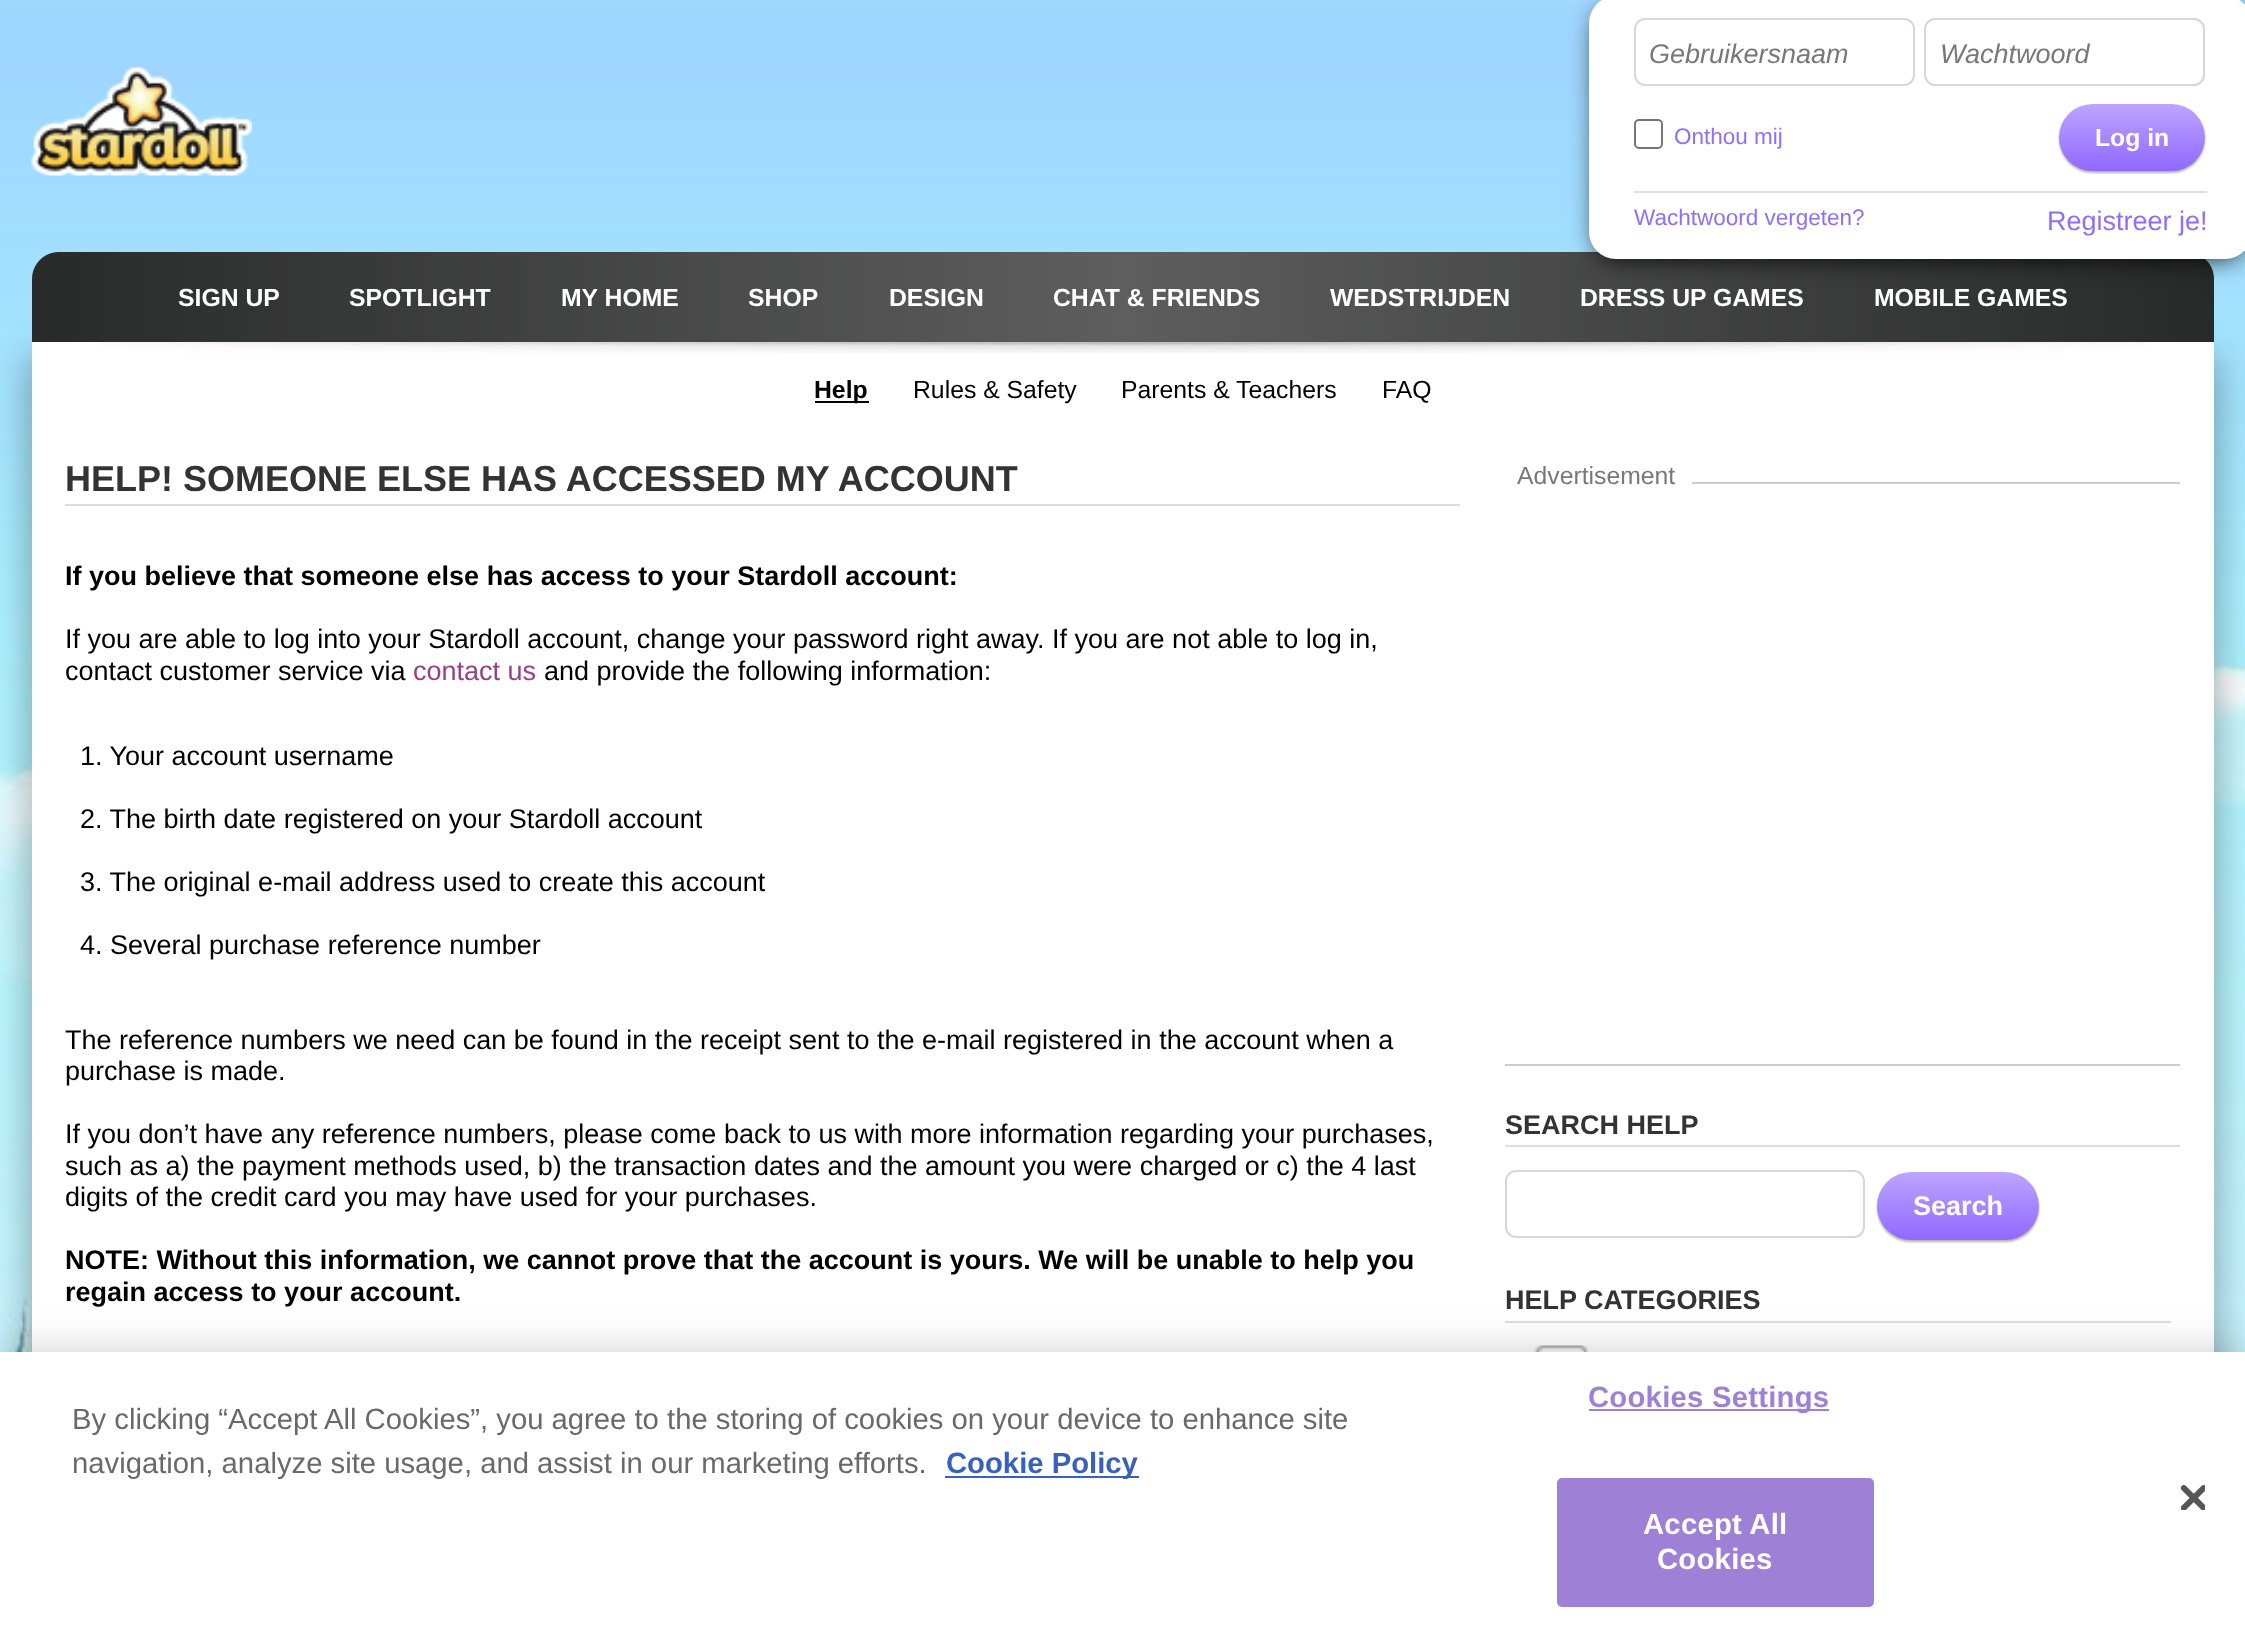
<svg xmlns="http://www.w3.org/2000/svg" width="2245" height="1641">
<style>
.a{font:italic 27px Liberation Sans;fill:#787878}
.b{font:22.5px Liberation Sans;fill:#906efb}
.c{font:bold 24.75px Liberation Sans;fill:#fff}
.d{font:27px Liberation Sans;fill:#906efb}
.e{font:bold 24.75px Liberation Sans;fill:#000}
.f{font:24.75px Liberation Sans;fill:#000}
.g{font:bold 36px Liberation Sans;fill:#333}
.h{font:bold 27px Liberation Sans;fill:#000}
.i{font:27px Liberation Sans;fill:#000}
.j{font:27px Liberation Sans;fill:#943f88}
.k{font:24.75px Liberation Sans;fill:#787878}
.l{font:bold 27px Liberation Sans;fill:#333}
.m{font:bold 27px Liberation Sans;fill:#fff}
.n{font:29.25px Liberation Sans;fill:#696969}
.o{font:bold 29.25px Liberation Sans;fill:#3860be}
.p{font:bold 29.25px Liberation Sans;letter-spacing:0.25px;fill:#9e80d6}
.q{font:bold 29.25px Liberation Sans;letter-spacing:0.25px;fill:#fff}
</style>
<defs>
<linearGradient id="g1" gradientUnits="userSpaceOnUse" x1="32" y1="297" x2="2214" y2="297"><stop offset="0" stop-color="#282929"/><stop offset="0.5" stop-color="#5e5e5e"/><stop offset="1" stop-color="#282929"/></linearGradient>
<linearGradient id="g2" gradientUnits="userSpaceOnUse" x1="2132" y1="104" x2="2132" y2="171"><stop offset="0" stop-color="#bea4ff"/><stop offset="1" stop-color="#9069ff"/></linearGradient>
<linearGradient id="g3" gradientUnits="userSpaceOnUse" x1="1958" y1="1172" x2="1958" y2="1240"><stop offset="0" stop-color="#bea4ff"/><stop offset="1" stop-color="#9069ff"/></linearGradient>
</defs>
<rect width="100%" height="100%" fill="#fff"/>
<image href="1.png" x="0" y="0" width="2245" height="1352"/>
<image href="2.png" x="31" y="67" width="221" height="109"/>
<path fill="#0000004d" filter="blur(18px)" d="M27 358h45v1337H27z"/>
<path fill="#0000004d" filter="blur(18px)" d="M2174 358h45v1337H2174z"/>
<path fill="url(#g1)" d="M59 252h2128c15 0 27 12 27 27v63h-2182v-63c0-15 12-27 27-27z"/>
<rect fill="#000" filter="blur(13.5px)" x="1598" y="11" width="645" height="246" rx="18"/>
<rect fill="#fff" x="1589" y="-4" width="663" height="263" rx="27"/>
<rect fill="none" stroke="#d7d7d7" stroke-width="2" x="1635" y="19" width="279" height="66" rx="10"/>
<rect fill="none" stroke="#d7d7d7" stroke-width="2" x="1925" y="19" width="279" height="66" rx="10"/>
<rect fill="none" stroke="#767676" stroke-width="2" x="1635" y="120" width="27" height="28" rx="4"/>
<rect fill="#0000004d" filter="blur(1px)" x="2059" y="106" width="146" height="67" rx="33.5"/>
<rect fill="url(#g2)" x="2059" y="104" width="146" height="67" rx="33.5"/>
<path fill="#dfdfdf" d="M1634 191h573v2H1634z"/>
<path fill="#fff" d="M32 342h2182v1010H32z"/>
<image href="3.png" x="100" y="342" width="2050" height="11"/>
<path fill="#000" d="M815 401h54v2H815z"/>
<path fill="#ddd" d="M65 504h1395v2H65z"/>
<path fill="#ccc" d="M1692 482h488v2H1692z"/>
<path fill="#ccc" d="M1505 1064h675v2H1505z"/>
<path fill="#ddd" d="M1505 1145h675v2H1505z"/>
<rect fill="none" stroke="#d7d7d7" stroke-width="2" x="1506" y="1171" width="358" height="66" rx="10"/>
<rect fill="#0000004d" filter="blur(1px)" x="1877" y="1175" width="162" height="67" rx="33.5"/>
<rect fill="url(#g3)" x="1877" y="1172" width="162" height="68" rx="34"/>
<path fill="#ddd" d="M1505 1321h666v2H1505z"/>
<image href="4.png" x="1534" y="1345" width="55" height="7"/>
<path fill="#00000033" filter="blur(20px)" d="M0 1352h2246v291H0z"/>
<path fill="#fff" d="M0 1352h2245v289H0z"/>
<path fill="#3860be" d="M945 1476h194v2H945z"/>
<path fill="#9e80d6" d="M1589 1409h240v2H1589z"/>
<rect fill="#9e80d6" stroke="#9e80d6" stroke-width="2" x="1558" y="1479" width="315" height="127" rx="4"/>
<image href="5.png" x="2180" y="1485" width="25" height="25"/>
<text class="a" x="1649" y="63">Gebruikersnaam</text>
<text class="a" x="1940" y="63">Wachtwoord</text>
<text class="b" x="1674" y="144">Onthou mij</text>
<text class="c" x="2095" y="146">Log in</text>
<text class="b" x="1634" y="225">Wachtwoord vergeten?</text>
<text class="d" x="2047" y="230">Registreer je!</text>
<text class="c" x="178" y="306">SIGN UP</text>
<text class="c" x="349" y="306">SPOTLIGHT</text>
<text class="c" x="561" y="306">MY HOME</text>
<text class="c" x="748" y="306">SHOP</text>
<text class="c" x="889" y="306">DESIGN</text>
<text class="c" x="1053" y="306">CHAT &amp; FRIENDS</text>
<text class="c" x="1330" y="306">WEDSTRIJDEN</text>
<text class="c" x="1580" y="306">DRESS UP GAMES</text>
<text class="c" x="1874" y="306">MOBILE GAMES</text>
<text class="e" x="814" y="398">Help</text>
<text class="f" x="913" y="398">Rules &amp; Safety</text>
<text class="f" x="1121" y="398">Parents &amp; Teachers</text>
<text class="f" x="1382" y="398">FAQ</text>
<text class="g" x="65" y="491">HELP! SOMEONE ELSE HAS ACCESSED MY ACCOUNT</text>
<text class="h" x="65" y="585">If you believe that someone else has access to your Stardoll account:</text>
<text class="i" x="65" y="648">If you are able to log into your Stardoll account, change your password right away. If you are not able to log in,</text>
<text class="i" x="65" y="680">contact customer service via</text>
<text class="j" x="413" y="680">contact us</text>
<text class="i" x="544" y="680">and provide the following information:</text>
<text class="i" x="80" y="765">1. Your account username</text>
<text class="i" x="80" y="828">2. The birth date registered on your Stardoll account</text>
<text class="i" x="80" y="891">3. The original e-mail address used to create this account</text>
<text class="i" x="80" y="954">4. Several purchase reference number</text>
<text class="i" x="65" y="1049">The reference numbers we need can be found in the receipt sent to the e-mail registered in the account when a</text>
<text class="i" x="65" y="1080">purchase is made.</text>
<text class="i" x="65" y="1143">If you don’t have any reference numbers, please come back to us with more information regarding your purchases,</text>
<text class="i" x="65" y="1175">such as a) the payment methods used, b) the transaction dates and the amount you were charged or c) the 4 last</text>
<text class="i" x="65" y="1206">digits of the credit card you may have used for your purchases.</text>
<text class="h" x="65" y="1269">NOTE: Without this information, we cannot prove that the account is yours. We will be unable to help you</text>
<text class="h" x="65" y="1301">regain access to your account.</text>
<text class="k" x="1517" y="484">Advertisement</text>
<text class="l" x="1505" y="1134">SEARCH HELP</text>
<text class="m" x="1913" y="1215">Search</text>
<text class="l" x="1505" y="1309">HELP CATEGORIES</text>
<text class="n" x="72" y="1429">By clicking “Accept All Cookies”, you agree to the storing of cookies on your device to enhance site</text>
<text class="n" x="72" y="1473">navigation, analyze site usage, and assist in our marketing efforts.</text>
<text class="o" x="946" y="1473">Cookie Policy</text>
<text class="p" x="1588" y="1407">Cookies Settings</text>
<text class="q" x="1643" y="1534">Accept All</text>
<text class="q" x="1657" y="1569">Cookies</text>
</svg>
